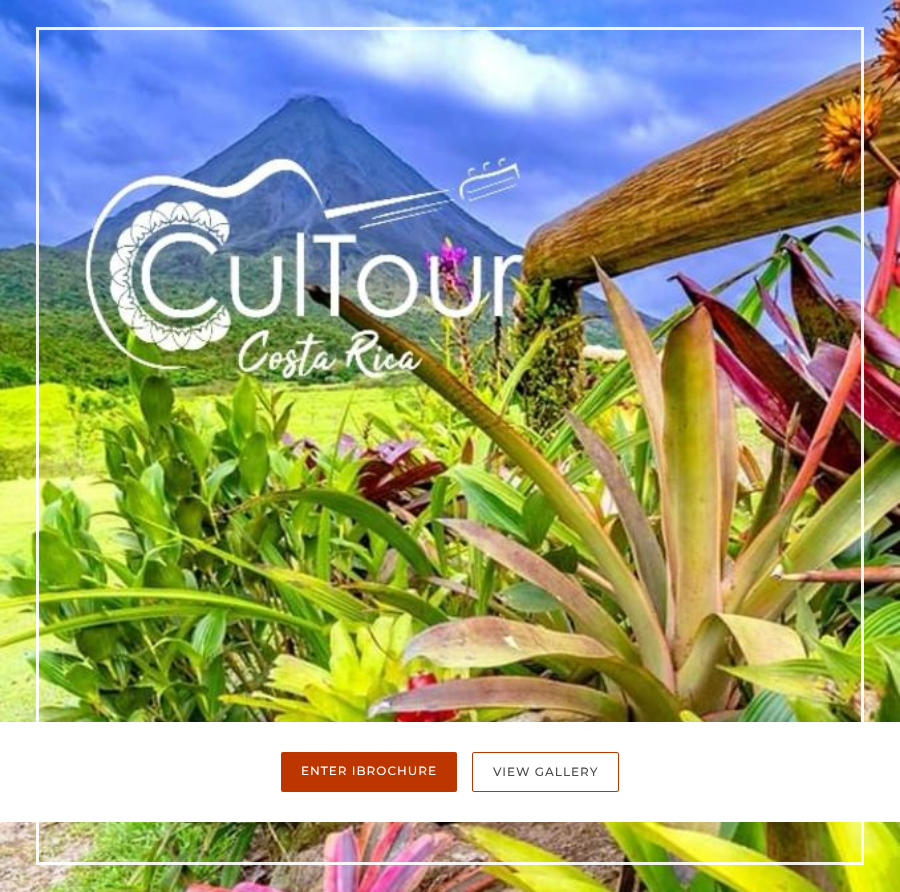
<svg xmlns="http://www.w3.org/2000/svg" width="900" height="892">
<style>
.a{font:500 12px Montserrat;letter-spacing:1px;fill:#fff}
.b{font:500 12px Montserrat;letter-spacing:1px;fill:#4a4a4a}
</style>
<rect width="100%" height="100%" fill="#fff"/>
<image href="1.png" x="0" y="0" width="900" height="892"/>
<path fill="none" stroke="#ffffffe6" stroke-width="3" d="M37.5 28.5h825v835H37.5z"/>
<path fill="#fff" d="M0 722h900v100H0z"/>
<rect fill="#bd3600" x="281" y="752" width="176" height="40" rx="2"/>
<rect fill="none" stroke="#bd3600" x="472.5" y="752.5" width="146" height="39" rx="1.5"/>
<text class="a" x="301" y="775">ENTER IBROCHURE</text>
<text class="b" x="493" y="776">VIEW GALLERY</text>
</svg>
